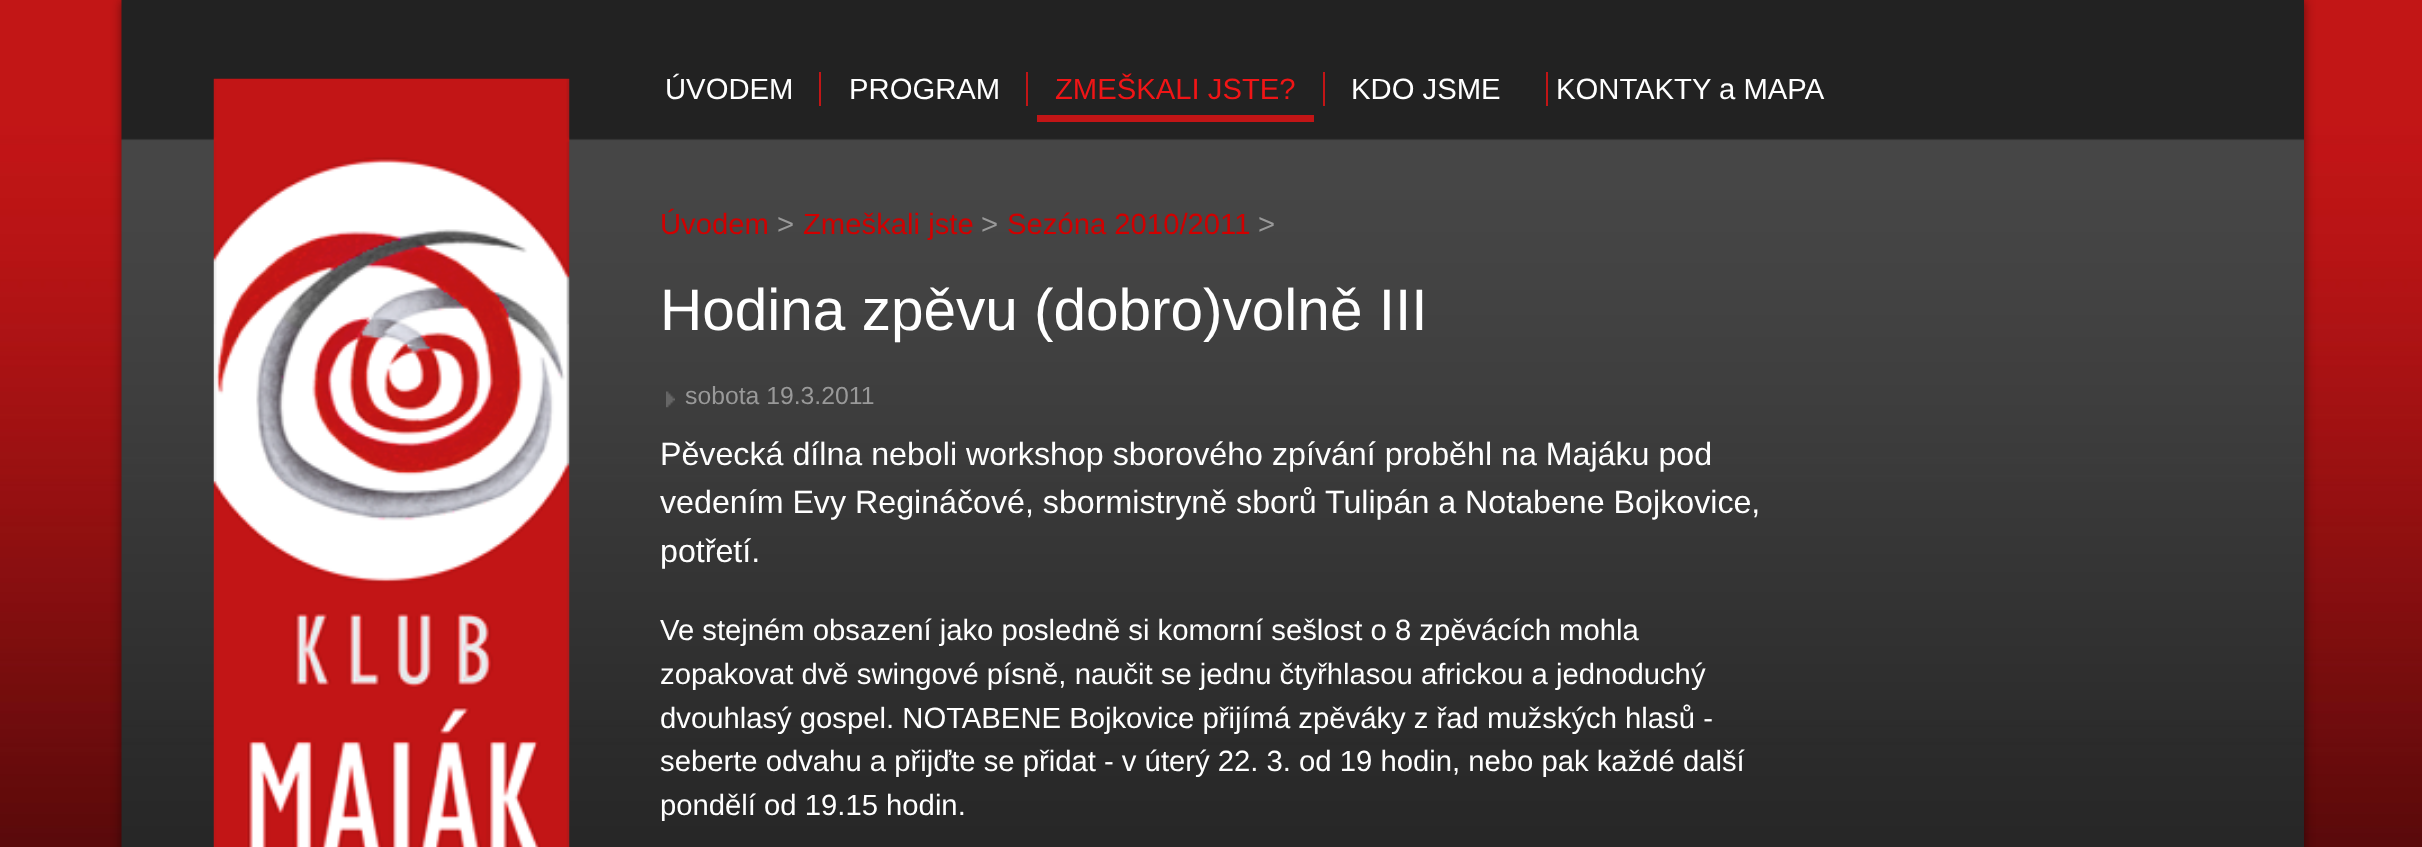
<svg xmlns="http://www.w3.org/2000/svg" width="2422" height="847">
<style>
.a{font:29.25px Liberation Sans;fill:#fff}
.b{font:29.25px Liberation Sans;fill:#f01516}
.c{font:29.25px Liberation Sans;fill:#d00000}
.d{font:29.25px Liberation Sans;fill:#999}
.e{font:58.5px Liberation Sans;fill:#fff}
.f{font:24.75px Liberation Sans;fill:#999}
.g{font:32.2px Liberation Sans;fill:#fff}
</style>
<rect width="100%" height="100%" fill="#fff"/>
<image href="1.png" x="0" y="0" width="2422" height="847"/>
<path fill="#00000080" filter="blur(5.5px)" d="M122 0h2182v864H122z"/>
<image href="2.png" x="121" y="0" width="2183" height="847"/>
<image href="3.png" x="213" y="78" width="357" height="769"/>
<path fill="#c21516" d="M819 72h2v34H819z"/>
<path fill="#c21516" d="M1026 72h2v34H1026z"/>
<path fill="#c21516" d="M1037 115h277v7H1037z"/>
<path fill="#c21516" d="M1323 72h2v34H1323z"/>
<path fill="#c21516" d="M1546 72h2v34H1546z"/>
<image href="4.png" x="666" y="391" width="9" height="17"/>
<text class="a" x="665" y="99">ÚVODEM</text>
<text class="a" x="849" y="99">PROGRAM</text>
<text class="b" x="1055" y="99">ZMEŠKALI JSTE?</text>
<text class="a" x="1351" y="99">KDO JSME</text>
<text class="a" x="1556" y="99">KONTAKTY a MAPA</text>
<text class="c" x="660" y="234">Úvodem</text>
<text class="d" x="777" y="234">&gt;</text>
<text class="c" x="803" y="234">Zmeškali jste</text>
<text class="d" x="981" y="234">&gt;</text>
<text class="c" x="1007" y="234">Sezóna 2010/2011</text>
<text class="d" x="1258" y="234">&gt;</text>
<text class="e" x="660" y="330">Hodina zpěvu (dobro)volně III</text>
<text class="f" x="685" y="404">sobota 19.3.2011</text>
<text class="g" x="660" y="465">Pěvecká dílna neboli workshop sborového zpívání proběhl na Majáku pod</text>
<text class="g" x="660" y="513">vedením Evy Regináčové, sbormistryně sborů Tulipán a Notabene Bojkovice,</text>
<text class="g" x="660" y="562">potřetí.</text>
<text class="a" x="660" y="640">Ve stejném obsazení jako posledně si komorní sešlost o 8 zpěvácích mohla</text>
<text class="a" x="660" y="684">zopakovat dvě swingové písně, naučit se jednu čtyřhlasou africkou a jednoduchý</text>
<text class="a" x="660" y="728">dvouhlasý gospel. NOTABENE Bojkovice přijímá zpěváky z řad mužských hlasů -</text>
<text class="a" x="660" y="771">seberte odvahu a přijďte se přidat - v úterý 22. 3. od 19 hodin, nebo pak každé další</text>
<text class="a" x="660" y="815">pondělí od 19.15 hodin.</text>
</svg>
